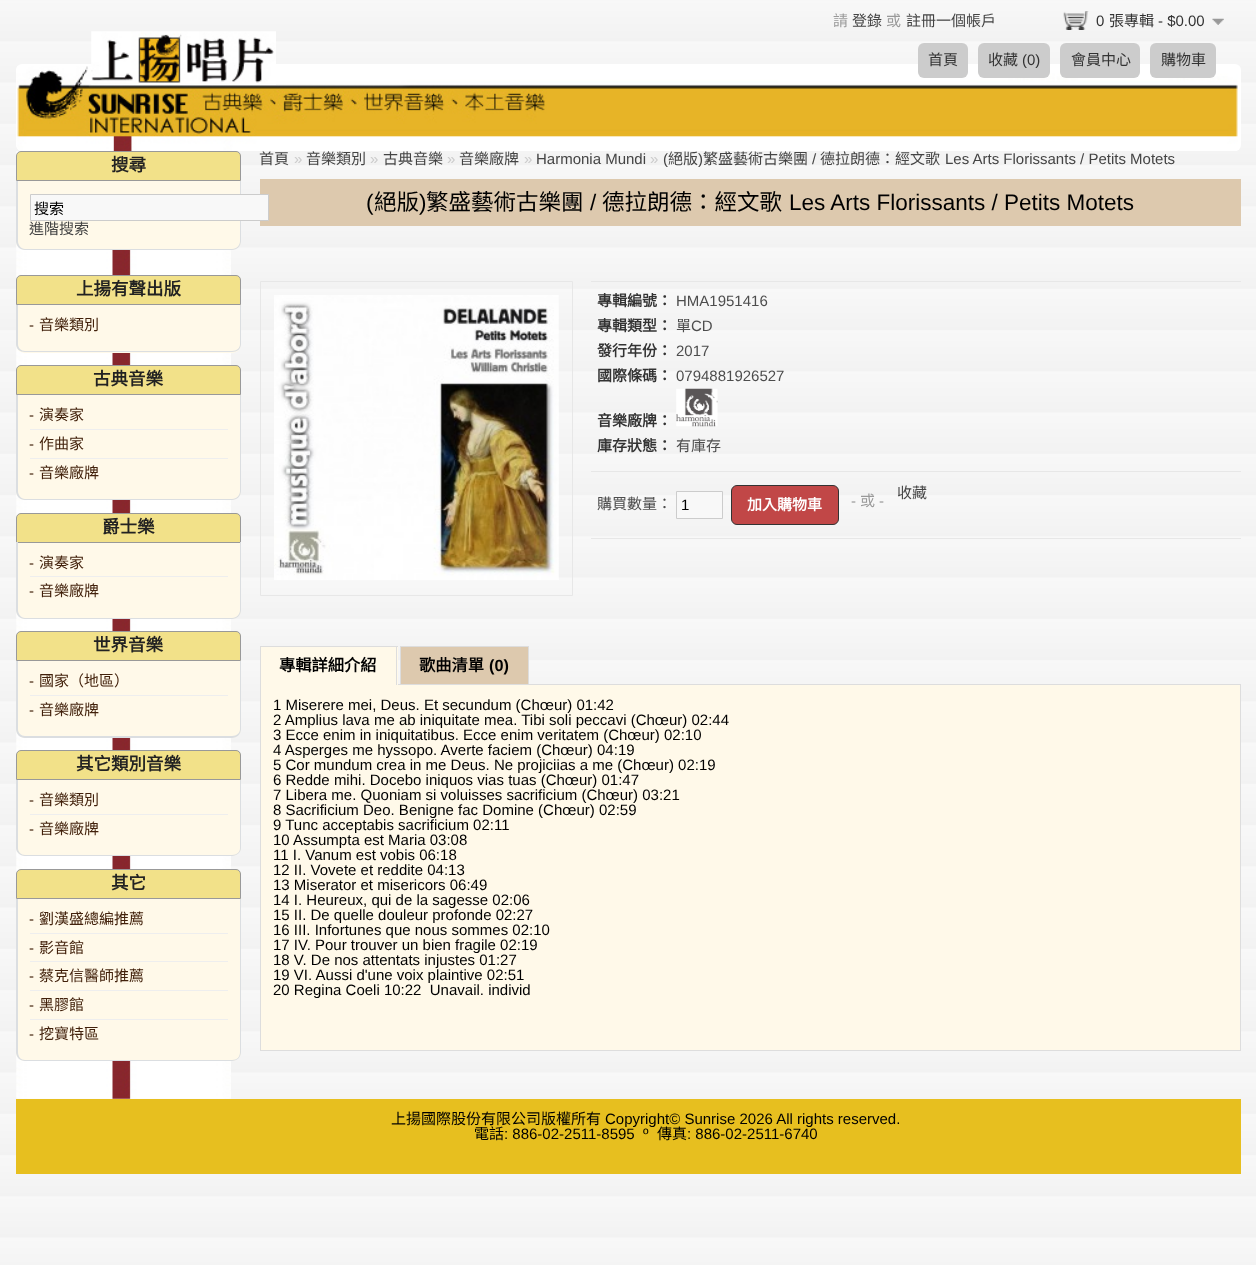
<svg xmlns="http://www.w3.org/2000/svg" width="1256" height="1265">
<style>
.a{font:15px Noto Sans CJK HK;fill:#999}
.b{font:15px Noto Sans CJK HK;fill:#444}
.c{font:15px Liberation Sans;fill:#333}
.d{font:15px Noto Sans CJK HK;fill:#333}
.e{font:bold 17.5px Noto Sans CJK HK;fill:#222}
.f{font:15px Noto Sans CJK HK;fill:#000}
.g{font:15px Liberation Sans;fill:#42210b}
.h{font:15px Noto Sans CJK HK;fill:#42210b}
.i{font:15px Liberation Sans;fill:#ccc}
.j{font:15px Liberation Sans;fill:#444}
.k{font:22.5px Liberation Sans;fill:#000}
.l{font:22.5px Noto Sans CJK HK;fill:#000}
.m{font:bold 15px Noto Sans CJK HK;fill:#333}
.n{font:15px Liberation Sans;fill:#4d4d4d}
.o{font:15px Noto Sans CJK HK;fill:#4d4d4d}
.p{font:15px Liberation Sans;fill:#000}
.q{font:bold 15px Noto Sans CJK HK;fill:#fff}
.r{font:15px Liberation Sans;fill:#999}
.s{font:bold 16.25px Noto Sans CJK HK;fill:#000}
.t{font:bold 16.25px Liberation Sans;fill:#000}
</style>
<rect width="100%" height="100%" fill="#fff"/>
<image href="1.png" x="0" y="0" width="1256" height="1265"/>
<image href="2.png" x="1063" y="11" width="26" height="19"/>
<image href="3.png" x="1212" y="18" width="12" height="7"/>
<rect fill="#fff" x="16" y="64" width="1225" height="87" rx="6"/>
<image href="5.png" x="16" y="66" width="1222" height="86"/>
<image href="4.png" x="91" y="31" width="185" height="54"/>
<rect fill="#ccc" x="918" y="43" width="50" height="35" rx="6"/>
<rect fill="#ccc" x="978" y="43" width="72" height="35" rx="6"/>
<rect fill="#ccc" x="1060" y="43" width="80" height="35" rx="6"/>
<rect fill="#ccc" x="1150" y="43" width="66" height="35" rx="6"/>
<image href="6.png" x="16" y="151" width="215" height="948"/>
<path fill="#f2e189" stroke="#999" d="M21 151.5h215c2.5 0 4.5 2 4.5 4.5v24.5h-224v-24.5c0-2.5 2-4.5 4.5-4.5z"/>
<path fill="#fff9e9" d="M16 181h225v60c0 5-4 9-9 9h-207c-5 0-9-4-9-9z"/>
<path fill="#dbdee1" fill-rule="evenodd" d="M16 181h225v60c0 5-4 9-9 9h-207c-5 0-9-4-9-9zm2 0h222v60c0 4-3 8-8 8h-207c-4 0-7-4-7-8z"/>
<path fill="#ddc9ae" d="M260 179h981v47H260z"/>
<path fill="#f8f8f8" stroke="#ccc" d="M30.5 194.5h238v26H30.5z"/>
<path fill="#f2e189" stroke="#999" d="M21 275.5h215c2.5 0 4.5 2 4.5 4.5v24.5h-224v-24.5c0-2.5 2-4.5 4.5-4.5z"/>
<path fill="#fff9e9" d="M16 305h225v39c0 5-4 9-9 9h-207c-5 0-9-4-9-9z"/>
<path fill="#dbdee1" fill-rule="evenodd" d="M16 305h225v39c0 5-4 8-9 8h-207c-5 0-9-3-9-8zm2 0h222v39c0 4-3 7-8 7h-207c-4 0-7-3-7-7z"/>
<path fill="#f2e189" stroke="#999" d="M21 365.5h215c2.5 0 4.5 2 4.5 4.5v24.5h-224v-24.5c0-2.5 2-4.5 4.5-4.5z"/>
<path fill="#fff9e9" d="M16 395h225v96c0 5-4 9-9 9h-207c-5 0-9-4-9-9z"/>
<path fill="#dbdee1" fill-rule="evenodd" d="M16 395h225v96c0 5-4 9-9 9h-207c-5 0-9-4-9-9zm2 0h222v96c0 4-3 8-8 8h-207c-4 0-7-4-7-8z"/>
<path fill="#eee" d="M30 429h198v1H30z"/>
<path fill="#eee" d="M30 458h198v1H30z"/>
<path fill="#f2e189" stroke="#999" d="M21 513.5h215c2.5 0 4.5 2 4.5 4.5v24.5h-224v-24.5c0-2.5 2-4.5 4.5-4.5z"/>
<path fill="#fff9e9" d="M16 543h225v67c0 5-4 9-9 9h-207c-5 0-9-4-9-9z"/>
<path fill="#dbdee1" fill-rule="evenodd" d="M16 542h225v68c0 5-4 9-9 9h-207c-5 0-9-4-9-9zm2 0h222v68c0 4-3 8-8 8h-207c-4 0-7-4-7-8z"/>
<path fill="#eee" d="M30 576h198v1H30z"/>
<path fill="#f2e189" stroke="#999" d="M21 631.5h215c2.5 0 4.5 2 4.5 4.5v24.5h-224v-24.5c0-2.5 2-4.5 4.5-4.5z"/>
<path fill="#fff9e9" d="M16 661h225v68c0 5-4 9-9 9h-207c-5 0-9-4-9-9z"/>
<path fill="#dbdee1" fill-rule="evenodd" d="M16 661h225v68c0 5-4 9-9 9h-207c-5 0-9-4-9-9zm2 0h222v68c0 4-3 7-8 7h-207c-4 0-7-3-7-7z"/>
<path fill="#eee" d="M30 695h198v1H30z"/>
<path fill="#f2e189" stroke="#999" d="M21 750.5h215c2.5 0 4.5 2 4.5 4.5v24.5h-224v-24.5c0-2.5 2-4.5 4.5-4.5z"/>
<path fill="#fff9e9" d="M16 780h225v67c0 5-4 9-9 9h-207c-5 0-9-4-9-9z"/>
<path fill="#dbdee1" fill-rule="evenodd" d="M16 780h225v68c0 4-4 8-9 8h-207c-5 0-9-4-9-8zm2 0h222v68c0 4-3 7-8 7h-207c-4 0-7-3-7-7z"/>
<path fill="#eee" d="M30 814h198v1H30z"/>
<path fill="#f2e189" stroke="#999" d="M21 869.5h215c2.5 0 4.5 2 4.5 4.5v24.5h-224v-24.5c0-2.5 2-4.5 4.5-4.5z"/>
<path fill="#fff9e9" d="M16 899h225v153c0 5-4 9-9 9h-207c-5 0-9-4-9-9z"/>
<path fill="#dbdee1" fill-rule="evenodd" d="M16 899h225v153c0 5-4 9-9 9h-207c-5 0-9-4-9-9zm2 0h222v153c0 5-3 8-8 8h-207c-4 0-7-3-7-8z"/>
<path fill="#eee" d="M30 933h198v1H30z"/>
<path fill="#eee" d="M30 961h198v1H30z"/>
<path fill="#eee" d="M30 990h198v1H30z"/>
<path fill="#eee" d="M30 1019h198v1H30z"/>
<path fill="none" stroke="#e7e7e7" d="M260.5 281.5h312v314H260.5z"/>
<image href="7.png" x="274" y="295" width="285" height="285"/>
<path fill="#e7e7e7" d="M591 281h650v1H591z"/>
<path fill="#e7e7e7" d="M591 471h650v1H591z"/>
<image href="8.png" x="676" y="388" width="42" height="39"/>
<path fill="#e7e7e7" d="M591 538h650v1H591z"/>
<path fill="#f8f8f8" stroke="#ccc" d="M676.5 491.5h46v27H676.5z"/>
<rect fill="#c14747" stroke="#333" x="731.5" y="485.5" width="107" height="39" rx="5.5"/>
<path fill="#ddd" d="M398 684h843v1H398z"/>
<path fill="#fff9e9" d="M261 647h137v38H261z"/>
<path fill="#ddd" d="M260 646h138v1H260z"/>
<path fill="#ddd" d="M396 646h1v39H396z"/>
<path fill="#ddd" d="M260 646h1v39H260z"/>
<path fill="#ddc9ae" d="M401 647h127v37H401z"/>
<path fill="#ddd" d="M400 646h129v1H400z"/>
<path fill="#ddd" d="M528 646h1v38H528z"/>
<path fill="#ddd" d="M400 646h1v38H400z"/>
<path fill="#fff9e9" d="M261 685h979v365H261z"/>
<path fill="#ddd" d="M1240 685h1v366H1240z"/>
<path fill="#ddd" d="M260 1050h981v1H260z"/>
<path fill="#ddd" d="M260 685h1v366H260z"/>
<path fill="#e7bf1f" d="M16 1099h1225v75H16z"/>
<text class="a" x="833" y="26">請</text>
<text class="b" x="852" y="26">登錄</text>
<text class="a" x="886" y="26">或</text>
<text class="b" x="906" y="26">註冊一個帳戶</text>
<text class="c" x="1096" y="26">0</text>
<text class="d" x="1109" y="26">張專輯</text>
<text class="c" x="1158" y="26">- $0.00</text>
<text class="d" x="928" y="65">首頁</text>
<text class="d" x="988" y="65">收藏</text>
<text class="c" x="1022" y="65">(0)</text>
<text class="d" x="1071" y="65">會員中心</text>
<text class="d" x="1161" y="65">購物車</text>
<text class="e" x="111" y="171">搜尋</text>
<text class="f" x="34" y="214">搜索</text>
<text class="b" x="29" y="234">進階搜索</text>
<text class="e" x="76" y="295">上揚有聲出版</text>
<text class="g" x="29" y="330">-</text>
<text class="h" x="39" y="330">音樂類別</text>
<text class="e" x="93" y="385">古典音樂</text>
<text class="g" x="29" y="420">-</text>
<text class="h" x="39" y="420">演奏家</text>
<text class="g" x="29" y="449">-</text>
<text class="h" x="39" y="449">作曲家</text>
<text class="g" x="29" y="478">-</text>
<text class="h" x="39" y="478">音樂廠牌</text>
<text class="e" x="102" y="533">爵士樂</text>
<text class="g" x="29" y="568">-</text>
<text class="h" x="39" y="568">演奏家</text>
<text class="g" x="29" y="596">-</text>
<text class="h" x="39" y="596">音樂廠牌</text>
<text class="e" x="93" y="651">世界音樂</text>
<text class="g" x="29" y="686">-</text>
<text class="h" x="39" y="686">國家（地區）</text>
<text class="g" x="29" y="715">-</text>
<text class="h" x="39" y="715">音樂廠牌</text>
<text class="e" x="76" y="770">其它類別音樂</text>
<text class="g" x="29" y="805">-</text>
<text class="h" x="39" y="805">音樂類別</text>
<text class="g" x="29" y="834">-</text>
<text class="h" x="39" y="834">音樂廠牌</text>
<text class="e" x="111" y="889">其它</text>
<text class="g" x="29" y="924">-</text>
<text class="h" x="39" y="924">劉漢盛總編推薦</text>
<text class="g" x="29" y="953">-</text>
<text class="h" x="39" y="953">影音館</text>
<text class="g" x="29" y="981">-</text>
<text class="h" x="39" y="981">蔡克信醫師推薦</text>
<text class="g" x="29" y="1010">-</text>
<text class="h" x="39" y="1010">黑膠館</text>
<text class="g" x="29" y="1039">-</text>
<text class="h" x="39" y="1039">挖寶特區</text>
<text class="b" x="259" y="164">首頁</text>
<text class="i" x="294" y="164">»</text>
<text class="b" x="306" y="164">音樂類別</text>
<text class="i" x="370" y="164">»</text>
<text class="b" x="383" y="164">古典音樂</text>
<text class="i" x="447" y="164">»</text>
<text class="b" x="459" y="164">音樂廠牌</text>
<text class="i" x="524" y="164">»</text>
<text class="j" x="536" y="164">Harmonia Mundi</text>
<text class="i" x="650" y="164">»</text>
<text class="j" x="663" y="164">(</text>
<text class="b" x="668" y="164">絕版</text>
<text class="j" x="698" y="164">)</text>
<text class="b" x="703" y="164">繁盛藝術古樂團</text>
<text class="j" x="812" y="164">/</text>
<text class="b" x="820" y="164">德拉朗德：經文歌</text>
<text class="j" x="945" y="164">Les Arts Florissants / Petits Motets</text>
<text class="k" x="366" y="210">(</text>
<text class="l" x="374" y="210">絕版</text>
<text class="k" x="419" y="210">)</text>
<text class="l" x="426" y="210">繁盛藝術古樂團</text>
<text class="k" x="590" y="210">/</text>
<text class="l" x="602" y="210">德拉朗德：經文歌</text>
<text class="k" x="789" y="210">Les Arts Florissants / Petits Motets</text>
<text class="m" x="597" y="306">專輯編號：</text>
<text class="n" x="676" y="306">HMA1951416</text>
<text class="m" x="597" y="331">專輯類型：</text>
<text class="o" x="676" y="331">單</text>
<text class="n" x="691" y="331">CD</text>
<text class="m" x="597" y="356">發行年份：</text>
<text class="n" x="676" y="356">2017</text>
<text class="m" x="597" y="381">國際條碼：</text>
<text class="n" x="676" y="381">0794881926527</text>
<text class="m" x="597" y="426">音樂廠牌：</text>
<text class="m" x="597" y="451">庫存狀態：</text>
<text class="o" x="676" y="451">有庫存</text>
<text class="o" x="597" y="509">購買數量：</text>
<text class="p" x="681" y="510">1</text>
<text class="q" x="747" y="510">加入購物車</text>
<text class="r" x="851" y="506">-</text>
<text class="a" x="860" y="506">或</text>
<text class="r" x="879" y="506">-</text>
<text class="b" x="897" y="498">收藏</text>
<text class="s" x="279" y="671">專輯詳細介紹</text>
<text class="s" x="419" y="671">歌曲清單</text>
<text class="t" x="489" y="671">(0)</text>
<text class="p" x="273" y="710">1 Miserere mei, Deus. Et secundum (Chœur) 01:42</text>
<text class="p" x="273" y="725">2 Amplius lava me ab iniquitate mea. Tibi soli peccavi (Chœur) 02:44</text>
<text class="p" x="273" y="740">3 Ecce enim in iniquitatibus. Ecce enim veritatem (Chœur) 02:10</text>
<text class="p" x="273" y="755">4 Asperges me hyssopo. Averte faciem (Chœur) 04:19</text>
<text class="p" x="273" y="770">5 Cor mundum crea in me Deus. Ne projiciias a me (Chœur) 02:19</text>
<text class="p" x="273" y="785">6 Redde mihi. Docebo iniquos vias tuas (Chœur) 01:47</text>
<text class="p" x="273" y="800">7 Libera me. Quoniam si voluisses sacrificium (Chœur) 03:21</text>
<text class="p" x="273" y="815">8 Sacrificium Deo. Benigne fac Domine (Chœur) 02:59</text>
<text class="p" x="273" y="830">9 Tunc acceptabis sacrificium 02:11</text>
<text class="p" x="273" y="845">10 Assumpta est Maria 03:08</text>
<text class="p" x="273" y="860">11 I. Vanum est vobis 06:18</text>
<text class="p" x="273" y="875">12 II. Vovete et reddite 04:13</text>
<text class="p" x="273" y="890">13 Miserator et misericors 06:49</text>
<text class="p" x="273" y="905">14 I. Heureux, qui de la sagesse 02:06</text>
<text class="p" x="273" y="920">15 II. De quelle douleur profonde 02:27</text>
<text class="p" x="273" y="935">16 III. Infortunes que nous sommes 02:10</text>
<text class="p" x="273" y="950">17 IV. Pour trouver un bien fragile 02:19</text>
<text class="p" x="273" y="965">18 V. De nos attentats injustes 01:27</text>
<text class="p" x="273" y="980">19 VI. Aussi d'une voix plaintive 02:51</text>
<text class="p" xml:space="preserve" x="273" y="995">20 Regina Coeli 10:22  Unavail. individ</text>
<text class="f" x="391" y="1124">上揚國際股份有限公司版權所有</text>
<text class="p" x="605" y="1124">Copyright© Sunrise 2026 All rights reserved.</text>
<text class="f" x="474" y="1139">電話</text>
<text class="p" xml:space="preserve" x="504" y="1139">: 886-02-2511-8595  º</text>
<text class="f" x="657" y="1139">傳真</text>
<text class="p" x="687" y="1139">: 886-02-2511-6740</text>
</svg>
